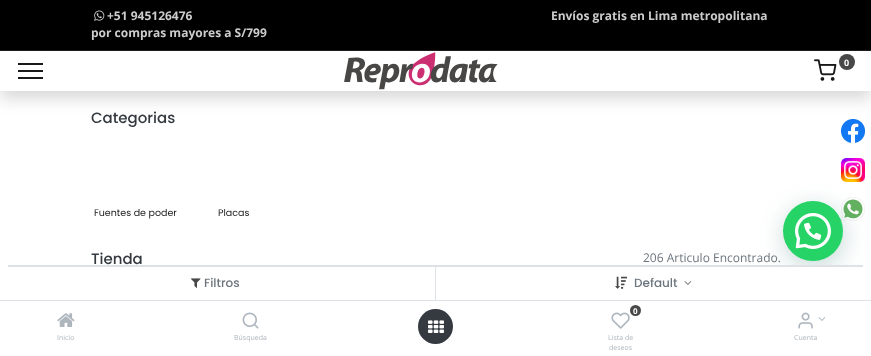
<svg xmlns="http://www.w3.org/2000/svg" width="871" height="356">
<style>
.a{font:bold 12px Open Sans;fill:#ccc}
.b{font:bold 9px Open Sans;fill:#fff}
.c{font:500 15px Poppins;fill:#343a40}
.d{font:9.5px Poppins;fill:#1a1919}
.e{font:12px Open Sans;fill:#6c757d}
.f{font:500 12px Poppins;fill:#6c757d}
.g{font:7px Open Sans;fill:#adb5bd}
.h{font:bold 8px Open Sans;fill:#fff}
</style>
<defs>
<clipPath id="clip1"><path d="M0 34h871v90h-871zm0 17h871v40h-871z" clip-rule="evenodd"/></clipPath>
</defs>
<rect width="100%" height="100%" fill="#fff"/>
<path fill="#000" d="M0 0h871v50H0z"/>
<path fill="#1f1f1f" d="M0 50h871v1H0z"/>
<image href="1.png" x="94" y="10" width="11" height="11"/>
<image href="4.png" x="841" y="119" width="24" height="24"/>
<g clip-path="url(#clip1)">
<path fill="#00000026" filter="blur(8px)" d="M0 59h871v40H0z"/>
</g>
<path fill="#1a1919" d="M18 63h25v2H18z"/>
<path fill="#1a1919" d="M18 70h25v2H18z"/>
<path fill="#1a1919" d="M18 77h25v2H18z"/>
<image href="2.png" x="344" y="52" width="154" height="38"/>
<image href="3.png" x="814" y="59" width="23" height="22"/>
<circle fill="#484848" cx="847" cy="62" r="8"/>
<image href="5.png" x="841" y="158" width="24" height="24"/>
<image href="6.png" x="841" y="197" width="24" height="24"/>
<rect fill="#075e543d" filter="blur(12px)" x="784" y="207" width="60" height="60" rx="30"/>
<circle fill="#25d366" cx="813" cy="231" r="30"/>
<image href="7.png" x="795" y="213" width="36" height="36"/>
<path fill="#fff" d="M16 265h839c9 0 16 7 16 16v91h-871v-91c0-9 7-16 16-16z"/>
<path fill="#dee2e6" d="M8 265h855v2H8z"/>
<path fill="#dee2e6" d="M0 300h871v1H0z"/>
<path fill="#dee2e6" d="M435 267h1v33H435z"/>
<image href="8.png" x="191" y="278" width="10" height="10"/>
<image href="9.png" x="615" y="276" width="12" height="13"/>
<image href="10.png" x="684" y="281" width="8" height="4"/>
<image href="11.png" x="57" y="313" width="18" height="14"/>
<image href="12.png" x="242" y="312" width="17" height="17"/>
<circle fill="#343a40" cx="435.5" cy="326.5" r="17.5"/>
<image href="13.png" x="428" y="320" width="16" height="13"/>
<image href="14.png" x="611" y="312" width="19" height="17"/>
<circle fill="#484848" cx="635.5" cy="310.5" r="5.5"/>
<image href="15.png" x="798" y="312" width="15" height="17"/>
<image href="16.png" x="818" y="317" width="8" height="4"/>
<text class="a" xml:space="preserve" x="107" y="20">+51 945126476                                                                                                                   Envíos gratis en Lima metropolitana</text>
<text class="a" x="91" y="37">por compras mayores a S/799</text>
<text class="b" x="844" y="66">0</text>
<text class="c" x="91" y="123">Categorias</text>
<text class="d" x="94" y="216">Fuentes de poder</text>
<text class="d" x="218" y="216">Placas</text>
<text class="c" x="91" y="264">Tienda</text>
<text class="e" x="643" y="262">206 Articulo Encontrado.</text>
<text class="f" x="204" y="287">Filtros</text>
<text class="f" x="634" y="287">Default</text>
<text class="g" x="57" y="340">Inicio</text>
<text class="g" x="234" y="340">Búsqueda</text>
<text class="h" x="633" y="314">0</text>
<text class="g" x="608" y="340">Lista de</text>
<text class="g" x="609" y="350">deseos</text>
<text class="g" x="794" y="340">Cuenta</text>
</svg>
